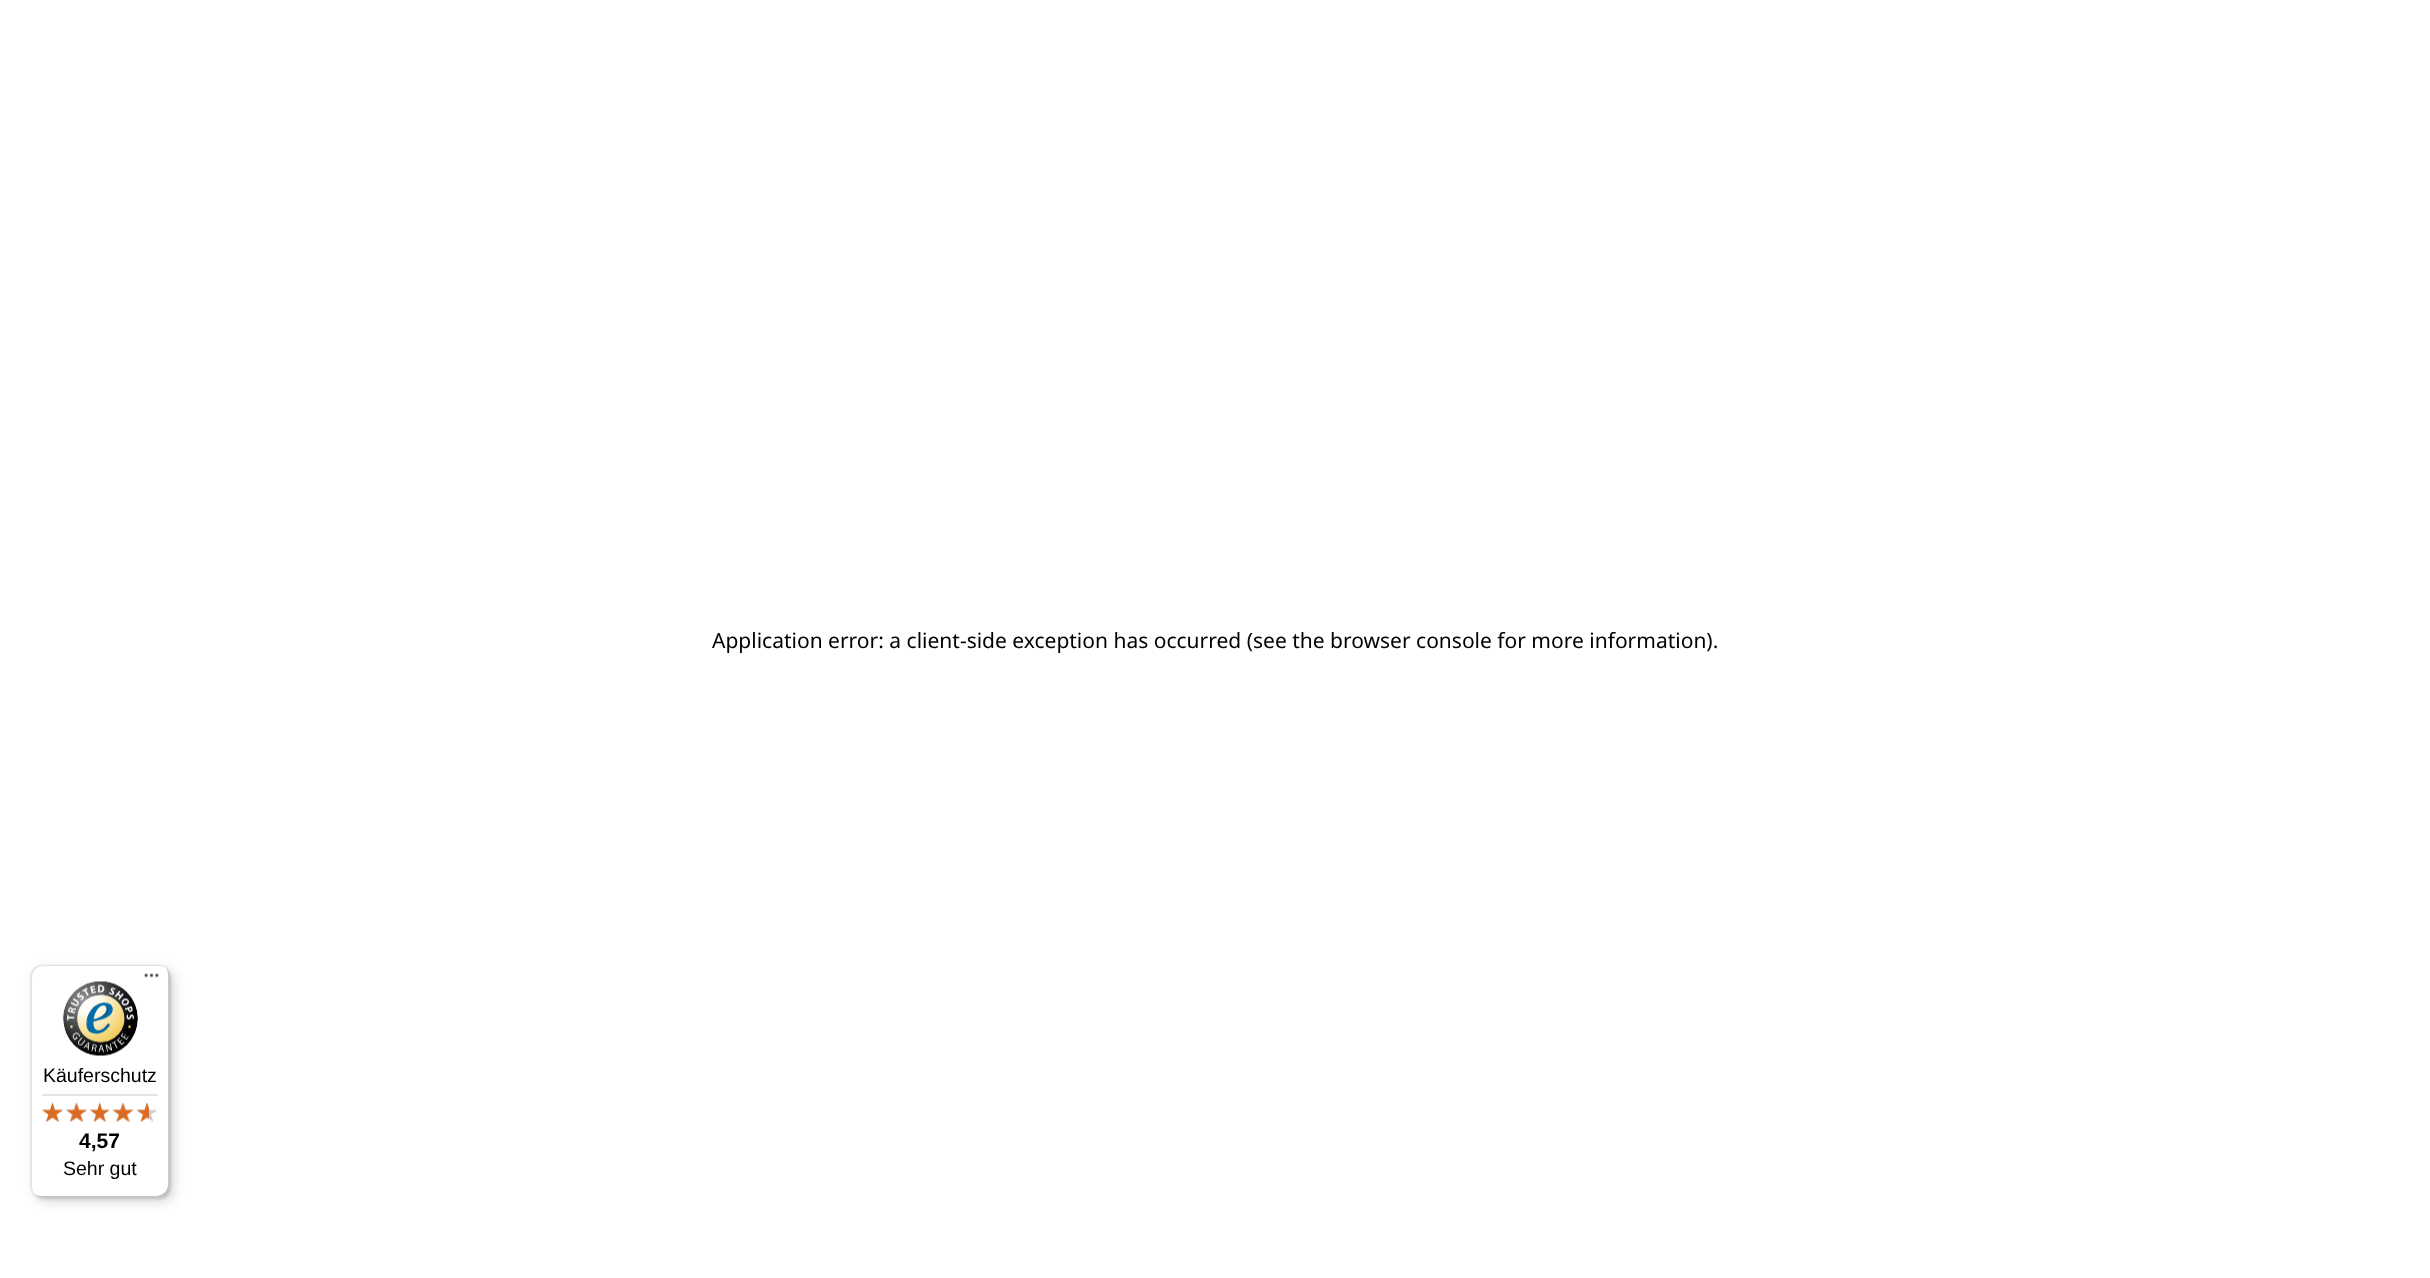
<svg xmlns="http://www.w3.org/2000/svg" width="2430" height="1278">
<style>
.a{font:21px Noto Sans;fill:#000}
.b{font:19.5px Liberation Sans;fill:#000}
.c{font:bold 21px Liberation Sans;fill:#000}
</style>
<rect width="100%" height="100%" fill="#fff"/>
<rect fill="#00000026" filter="blur(6px)" x="35" y="969" width="139" height="233" rx="12"/>
<rect fill="#00000026" filter="blur(1.5px)" x="32" y="966" width="139" height="233" rx="12"/>
<rect fill="#fff" x="30" y="965" width="140" height="232" rx="12"/>
<path fill="#0000001a" d="M44 966h115c3 0 5 1 7 2c-2-2-5-3-8-3h-116c-7 0-12 5-12 12v208c0 5 3 9 7 11c-3-2-5-6-5-10v-208c0-7 5-12 12-12z"/>
<path fill="#00000033" d="M35 1194c2 2 4 3 7 3h116c7 0 12-5 12-12v-208c0-4-2-7-4-9c1 2 2 4 2 7v209c0 6-5 12-12 12h-116c-2 0-4-1-5-2z"/>
<path fill="#32323233" d="M34 1194c2 2 5 3 8 3h116c7 0 12-5 12-12v-208c0-4-2-7-4-9c2 2 3 5 3 8v208c0 7-6 12-12 12h-116c-3 0-5-1-7-2z"/>
<path fill="#ffffff4d" d="M33 1193c2 2 5 4 9 4h116c7 0 12-5 12-12v-208c0-4-2-7-4-9c2 2 3 5 3 8v208c0 7-6 12-12 12h-116c-3 0-6-1-8-3z"/>
<image href="1.png" x="144" y="973" width="15" height="5"/>
<image href="2.png" x="63" y="981" width="75" height="75"/>
<path fill="#e5e5e5" d="M42 1094h116v2H42z"/>
<image href="3.png" x="42" y="1102" width="21" height="20"/>
<image href="4.png" x="66" y="1103" width="21" height="19"/>
<image href="5.png" x="90" y="1102" width="19" height="20"/>
<image href="6.png" x="113" y="1103" width="20" height="19"/>
<image href="7.png" x="137" y="1102" width="20" height="20"/>
<image href="8.png" x="42" y="1102" width="21" height="20"/>
<image href="9.png" x="66" y="1102" width="21" height="20"/>
<image href="10.png" x="90" y="1102" width="19" height="20"/>
<image href="11.png" x="112" y="1102" width="22" height="20"/>
<image href="12.png" x="137" y="1102" width="12" height="20"/>
<text class="a" x="712" y="648">Application error: a client-side exception has occurred (see the browser console for more information).</text>
<text class="b" x="43" y="1082">Käuferschutz</text>
<text class="c" x="79" y="1148">4,57</text>
<text class="b" x="63" y="1175">Sehr gut</text>
</svg>
